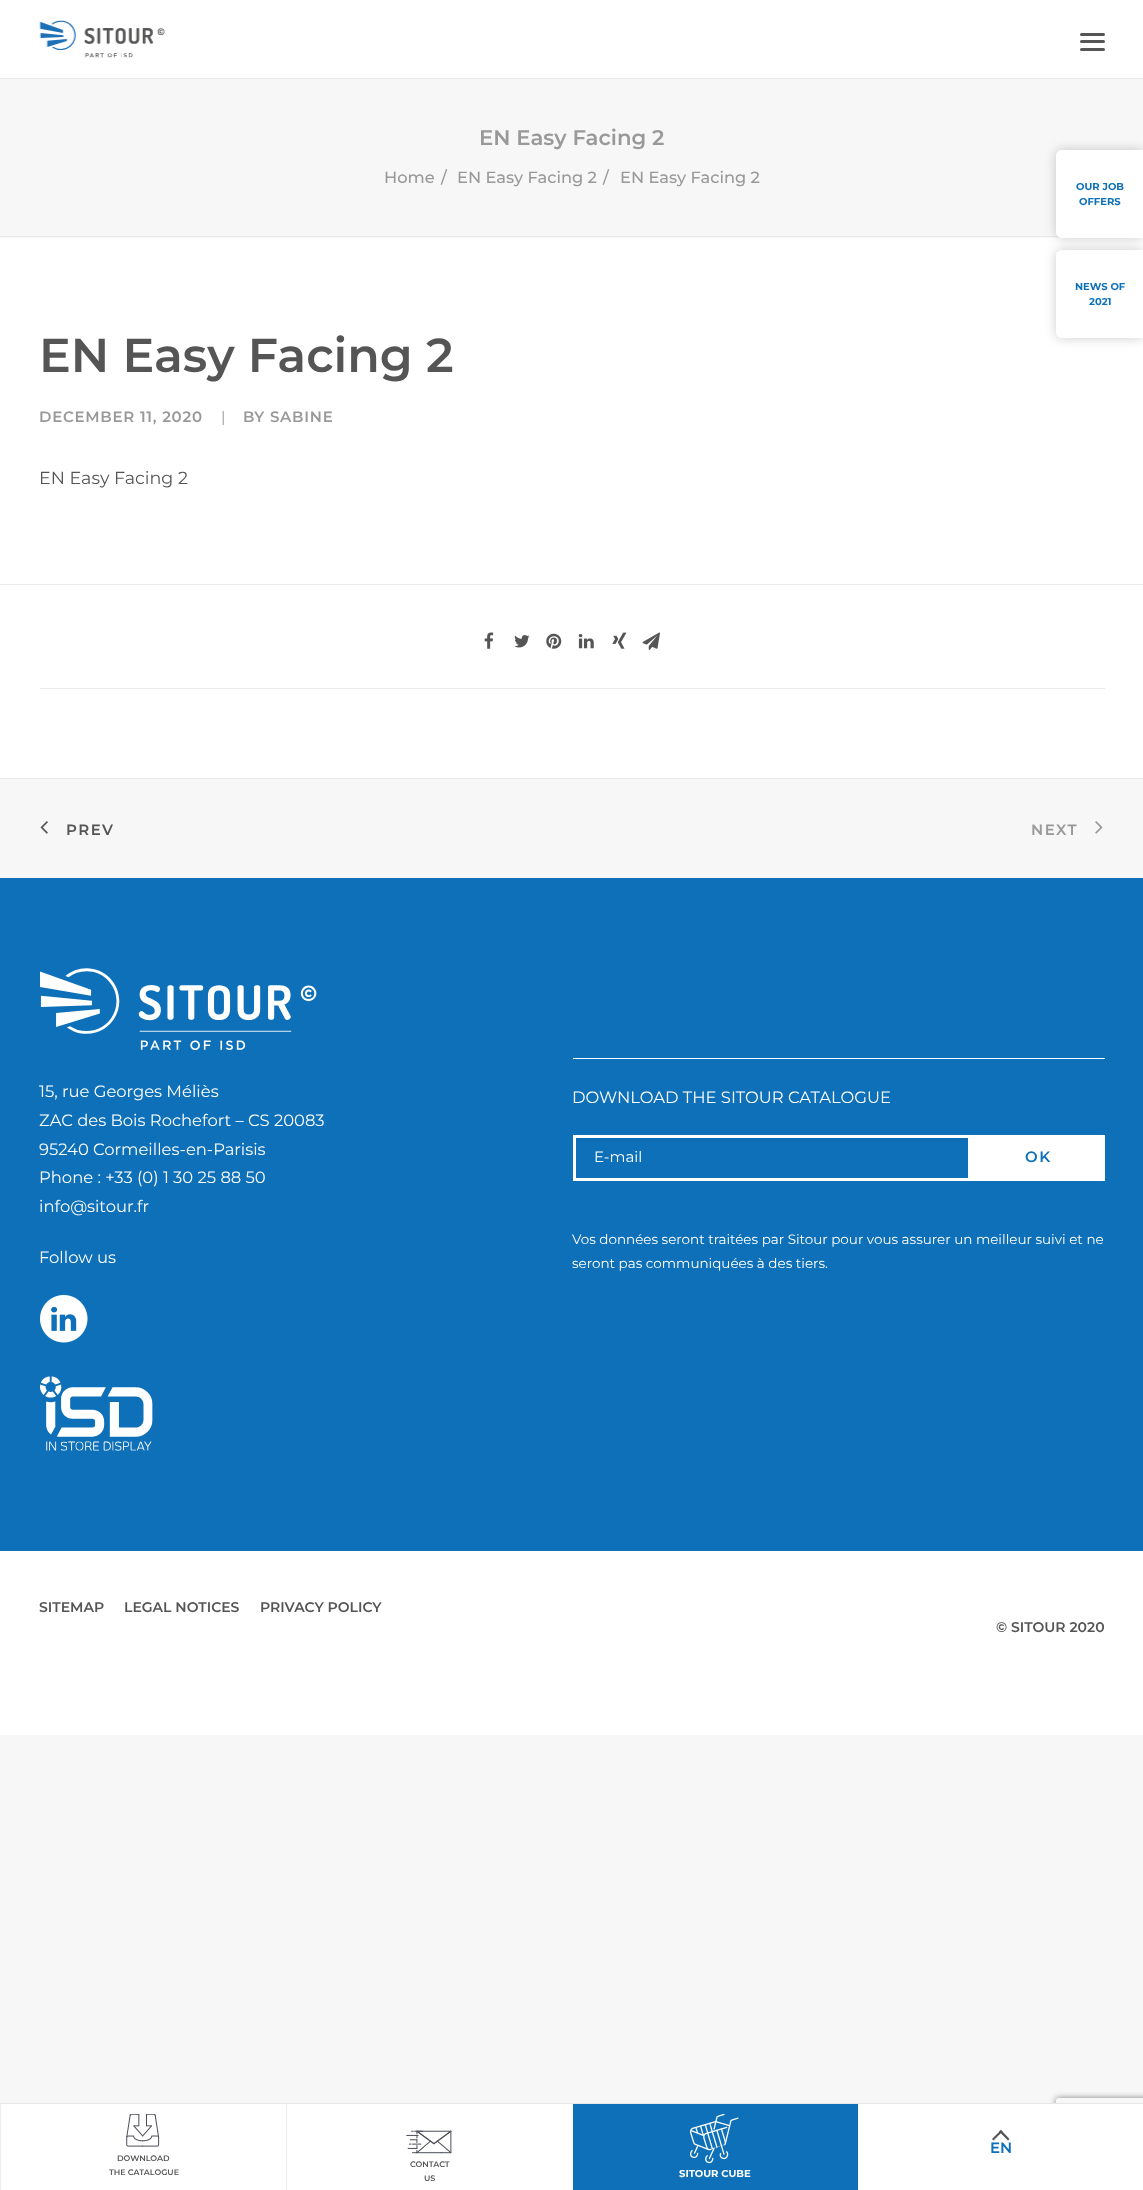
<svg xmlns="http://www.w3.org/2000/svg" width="1143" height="2190">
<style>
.a{font:600 21.25px Montserrat;fill:#999}
.b{font:500 16.25px Montserrat;fill:#999}
.c{font:600 47.5px Montserrat;fill:#555}
.d{font:600 15px Montserrat;letter-spacing:0.75px;fill:#999}
.e{font:15px Montserrat;letter-spacing:0.75px;fill:#999}
.f{font:17.5px Montserrat;fill:#555}
.g{font:600 15px Montserrat;letter-spacing:1.5px;fill:#555}
.h{font:600 15px Montserrat;letter-spacing:1.5px;fill:#999}
.i{font:16.4px Montserrat;fill:#fff}
.j{font:15px Montserrat;fill:#fff}
.k{font:600 15px Montserrat;letter-spacing:1.5px;fill:#0e70b8}
.l{font:13.5px Montserrat;fill:#fff}
.m{font:600 14px Montserrat;fill:#555}
.n{font:bold 10px Montserrat;fill:#0e70b8}
.o{font:600 15px Montserrat;fill:#0e70b8}
.p{font:600 8px Montserrat;fill:#555}
.q{font:bold 10px Montserrat;fill:#fff}
</style>
<defs>
<clipPath id="clip1"><path d="M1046 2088h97v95h-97zm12.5 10h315c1.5 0 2.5 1 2.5 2.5v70c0 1.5-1 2.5-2.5 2.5h-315c-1.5 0-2.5-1-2.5-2.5v-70c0-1.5 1-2.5 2.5-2.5z" clip-rule="evenodd"/></clipPath>
</defs>
<rect width="100%" height="100%" fill="#f7f7f7"/>
<path fill="#fff" d="M0 0h1143v78H0z"/>
<path fill="#eaeaea" d="M0 78h1143v1H0z"/>
<image href="1.png" x="39" y="20" width="126" height="38"/>
<rect fill="#555" x="1080" y="40" width="25" height="3" rx="1.5"/>
<rect fill="#555" x="1080" y="33" width="25" height="3" rx="1.5"/>
<rect fill="#555" x="1080" y="48" width="25" height="3" rx="1.5"/>
<path fill="#eaeaea" d="M0 236h1059v1H0z"/>
<path fill="#fff" d="M0 238h1143v540H0z"/>
<path fill="#eaeaea" d="M0 584h1143v1H0z"/>
<path fill="#eaeaea" d="M40 688h1065v1H40z"/>
<image href="2.png" x="484" y="632" width="10" height="17"/>
<image href="3.png" x="514" y="635" width="16" height="13"/>
<image href="4.png" x="546" y="633" width="16" height="16"/>
<image href="5.png" x="578" y="634" width="16" height="15"/>
<image href="6.png" x="612" y="632" width="15" height="17"/>
<image href="7.png" x="642" y="632" width="18" height="18"/>
<path fill="none" stroke="#eaeaea" d="M-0.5 778.5h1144v100H-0.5z"/>
<image href="8.png" x="40" y="821" width="8" height="13"/>
<image href="9.png" x="1095" y="821" width="8" height="13"/>
<path fill="#0e70b8" d="M0 878h1143v673H0z"/>
<image href="10.png" x="40" y="968" width="277" height="82"/>
<image href="11.png" x="40" y="1295" width="48" height="48"/>
<image href="12.png" x="40" y="1376" width="113" height="75"/>
<path fill="#fff" d="M573 1058h532v1H573z"/>
<path fill="#0e6db4" d="M575 1138h394v3H575z"/>
<path fill="none" stroke="#fff" stroke-width="3" d="M574.5 1136.5h395v43H574.5z"/>
<path fill="#fff" d="M971 1135h134v46H971z"/>
<path fill="#fff" d="M0 1551h1143v184H0z"/>
<rect fill="#00000033" filter="blur(6px)" x="1056" y="150" width="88" height="88" rx="6"/>
<path fill="#fff" d="M1062 150h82v88h-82c-3.5 0-6-2.5-6-6v-76c0-3.5 2.5-6 6-6z"/>
<rect fill="#00000033" filter="blur(6px)" x="1056" y="250" width="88" height="88" rx="6"/>
<path fill="#fff" d="M1062 250h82v88h-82c-3.5 0-6-2.5-6-6v-76c0-3.5 2.5-6 6-6z"/>
<g clip-path="url(#clip1)">
<rect fill="#808080" filter="blur(3px)" x="1056" y="2098" width="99" height="75" rx="2.5"/>
</g>
<path fill="#fff" d="M1 2104h1142v86H1z"/>
<path fill="#e6e6e6" d="M0 2103h1143v1H0z"/>
<path fill="#555" d="M1002.5 2131.5l-9 9l-1.5-1.5l9-9z"/>
<path fill="#555" d="M1009.5 2139l-1.5 1.5l-9-9l2-1.5z"/>
<path fill="#eee" d="M0 2104h1v86H0z"/>
<image href="13.png" x="126" y="2114" width="34" height="33"/>
<path fill="#eee" d="M286 2104h1v86H286z"/>
<image href="14.png" x="406" y="2130" width="46" height="24"/>
<path fill="#0e70b8" d="M573 2104h285v86H573z"/>
<image href="15.png" x="690" y="2114" width="49" height="50"/>
<text class="a" x="479" y="145">EN Easy Facing 2</text>
<text class="b" x="384" y="183">Home</text>
<text class="b" x="441" y="183">/</text>
<text class="b" x="457" y="183">EN Easy Facing 2</text>
<text class="b" x="603" y="183">/</text>
<text class="b" x="620" y="183">EN Easy Facing 2</text>
<text class="c" x="39" y="372">EN Easy Facing 2</text>
<text class="d" x="39" y="422">DECEMBER 11, 2020</text>
<text class="e" x="221" y="422">|</text>
<text class="d" x="243" y="422">BY SABINE</text>
<text class="f" x="39" y="484">EN Easy Facing 2</text>
<text class="g" x="66" y="835">PREV</text>
<text class="h" x="1031" y="835">NEXT</text>
<text class="i" x="39" y="1097">15, rue Georges Méliès</text>
<text class="i" x="39" y="1126">ZAC des Bois Rochefort – CS 20083</text>
<text class="i" x="39" y="1155">95240 Cormeilles-en-Parisis</text>
<text class="i" x="39" y="1183">Phone : +33 (0) 1 30 25 88 50</text>
<text class="i" x="39" y="1212">info@sitour.fr</text>
<text class="i" x="39" y="1263">Follow us</text>
<text class="i" x="572" y="1103">DOWNLOAD THE SITOUR CATALOGUE</text>
<text class="j" x="594" y="1162">E-mail</text>
<text class="k" x="1025" y="1162">OK</text>
<text class="l" x="572" y="1244">Vos données seront traitées par Sitour pour vous assurer un meilleur suivi et ne</text>
<text class="l" x="572" y="1268">seront pas communiquées à des tiers.</text>
<text class="m" x="39" y="1612">SITEMAP</text>
<text class="m" x="124" y="1612">LEGAL NOTICES</text>
<text class="m" x="260" y="1612">PRIVACY POLICY</text>
<text class="m" x="996" y="1632">© SITOUR 2020</text>
<text class="n" x="1076" y="190">OUR JOB</text>
<text class="n" x="1079" y="205">OFFERS</text>
<text class="n" x="1075" y="290">NEWS OF</text>
<text class="n" x="1089" y="305">2021</text>
<text class="o" x="990" y="2153">EN</text>
<text class="p" x="117" y="2161">DOWNLOAD</text>
<text class="p" x="109" y="2175">THE CATALOGUE</text>
<text class="p" x="410" y="2167">CONTACT</text>
<text class="p" x="424" y="2181">US</text>
<text class="q" x="679" y="2177">SITOUR CUBE</text>
</svg>
